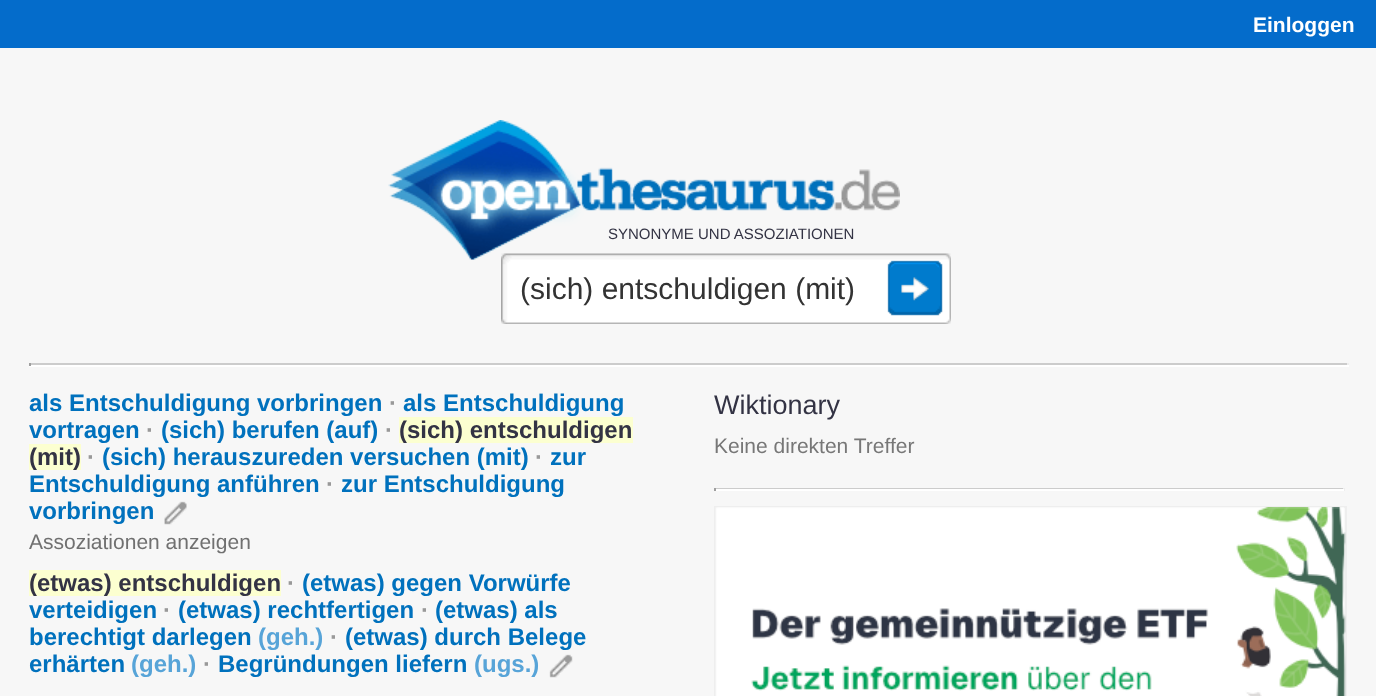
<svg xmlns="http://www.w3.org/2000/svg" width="1376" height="696">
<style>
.a{font:bold 21px Liberation Sans;fill:#fff}
.b{font:15px Liberation Sans;fill:#334}
.c{font:30px Liberation Sans;fill:#333}
.d{font:bold 24px Liberation Sans;fill:#0071bd}
.e{font:bold 24px Liberation Sans;fill:#999}
.f{font:bold 24px Liberation Sans;fill:#334}
.g{font:21px Liberation Sans;fill:#707070}
.h{font:bold 24px Liberation Sans;fill:#57a4d8}
.i{font:27px Liberation Sans;fill:#334}
.j{font:21px Liberation Sans;fill:#777}
</style>
<rect width="100%" height="100%" fill="#f7f7f7"/>
<path fill="#046ccb" d="M0 0h1376v48H0z"/>
<image href="1.png" x="388" y="120" width="512" height="140"/>
<image href="2.png" x="501" y="253" width="450" height="71"/>
<image href="3.png" x="887" y="260" width="56" height="56"/>
<path fill="#ccc" d="M29 363h1320v2H29z"/>
<path fill="#eee" d="M1347 363h2v3H1347z"/>
<path fill="#fff" d="M29 365h1320v2H29z"/>
<path fill="#9f9f9f" d="M29 363h2v3H29z"/>
<path fill="#fcffd0" d="M399 417h234v26H399z"/>
<path fill="#fcffd0" d="M29 444h52v26H29z"/>
<image href="4.png" x="164" y="501" width="23" height="24"/>
<path fill="#fcffd0" d="M29 570h252v26H29z"/>
<image href="5.png" x="549" y="654" width="24" height="24"/>
<path fill="#ccc" d="M714 488h630v1H714z"/>
<path fill="#eee" d="M1343 488h2v3H1343z"/>
<path fill="#fff" d="M714 489h630v2H714z"/>
<path fill="#9f9f9f" d="M714 488h2v3H714z"/>
<path fill="none" stroke="#eee" stroke-width="2" d="M715 507h631v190H715z"/>
<image href="6.png" x="715" y="507" width="631" height="189"/>
<text class="a" x="1253" y="32">Einloggen</text>
<text class="b" x="608" y="239">SYNONYME UND ASSOZIATIONEN</text>
<text class="c" x="520" y="299">(sich) entschuldigen (mit)</text>
<text class="d" x="29" y="411">als Entschuldigung vorbringen</text>
<text class="e" x="389" y="411">·</text>
<text class="d" x="403" y="411">als Entschuldigung</text>
<text class="d" x="29" y="438">vortragen</text>
<text class="e" x="146" y="438">·</text>
<text class="d" x="161" y="438">(sich) berufen (auf)</text>
<text class="e" x="385" y="438">·</text>
<text class="f" x="399" y="438">(sich) entschuldigen</text>
<text class="f" x="29" y="465">(mit)</text>
<text class="e" x="87" y="465">·</text>
<text class="d" x="102" y="465">(sich) herauszureden versuchen (mit)</text>
<text class="e" x="535" y="465">·</text>
<text class="d" x="550" y="465">zur</text>
<text class="d" x="29" y="492">Entschuldigung anführen</text>
<text class="e" x="326" y="492">·</text>
<text class="d" x="341" y="492">zur Entschuldigung</text>
<text class="d" x="29" y="519">vorbringen</text>
<text class="g" x="29" y="549">Assoziationen anzeigen</text>
<text class="f" x="29" y="591">(etwas) entschuldigen</text>
<text class="e" x="287" y="591">·</text>
<text class="d" x="302" y="591">(etwas) gegen Vorwürfe</text>
<text class="d" x="29" y="618">verteidigen</text>
<text class="e" x="163" y="618">·</text>
<text class="d" x="178" y="618">(etwas) rechtfertigen</text>
<text class="e" x="421" y="618">·</text>
<text class="d" x="435" y="618">(etwas) als</text>
<text class="d" x="29" y="645">berechtigt darlegen</text>
<text class="h" x="258" y="645">(geh.)</text>
<text class="e" x="330" y="645">·</text>
<text class="d" x="345" y="645">(etwas) durch Belege</text>
<text class="d" x="29" y="672">erhärten</text>
<text class="h" x="131" y="672">(geh.)</text>
<text class="e" x="203" y="672">·</text>
<text class="d" x="218" y="672">Begründungen liefern</text>
<text class="h" x="474" y="672">(ugs.)</text>
<text class="i" x="714" y="414">Wiktionary</text>
<text class="j" x="714" y="453">Keine direkten Treffer</text>
</svg>
